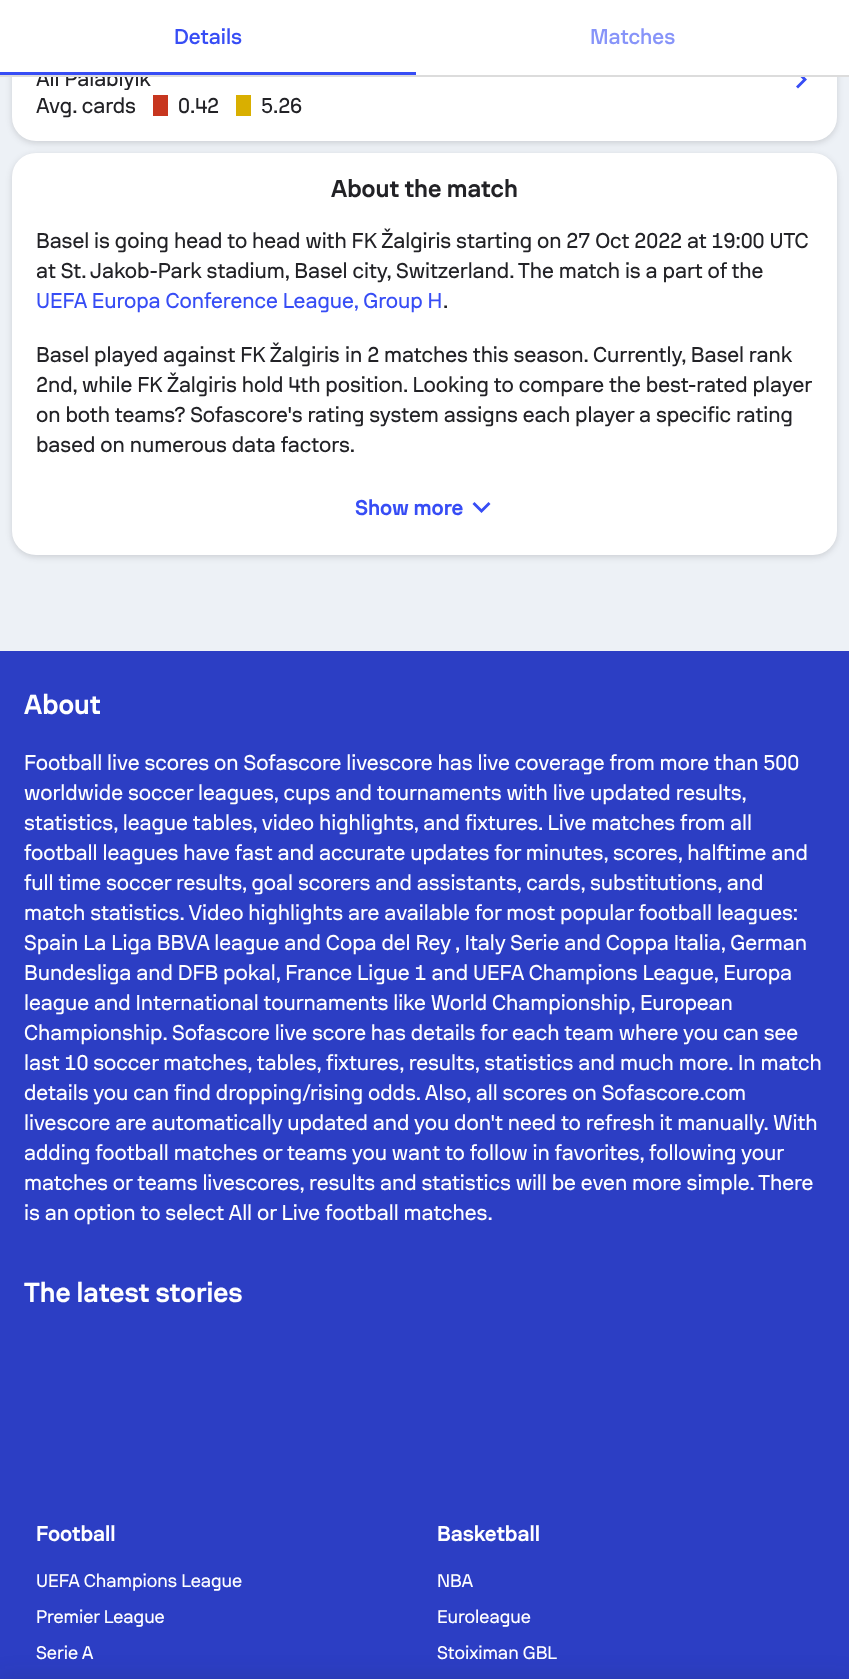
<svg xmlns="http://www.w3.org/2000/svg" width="849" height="1679">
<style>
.a{font:21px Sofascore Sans;letter-spacing:-0.05px;fill:#222226}
.b{font:500 21px Sofascore Sans;fill:#8794f9}
.c{font:500 21px Sofascore Sans;fill:#374df5}
.d{font:bold 24px Sofascore Sans;fill:#222226}
.e{font:21px Sofascore Sans;letter-spacing:-0.05px;fill:#374df5}
.f{font:bold 21px Sofascore Sans;letter-spacing:-0.05px;fill:#374df5}
.g{font:bold 27px Sofascore Sans;fill:#fff}
.h{font:21px Sofascore Sans;letter-spacing:-0.05px;fill:#fff}
.i{font:bold 21px Sofascore Sans;letter-spacing:-0.05px;fill:#fff}
.j{font:18px Sofascore Sans;letter-spacing:-0.05px;fill:#fff}
</style>
<defs>
<clipPath id="clip1"><path d="M36 66h116v24H36z"/></clipPath>
</defs>
<rect width="100%" height="100%" fill="#edf1f6"/>
<rect fill="#22222629" filter="blur(3px)" x="12" y="-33" width="825" height="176" rx="24"/>
<rect fill="#fff" x="12" y="-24" width="825" height="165" rx="24"/>
<path fill="#c7361f" d="M153 95h15v21H153z"/>
<path fill="#d9af00" d="M236 95h15v21H236z"/>
<path fill="#374df5" d="M798 70.5l-2 2l7 7l-7 7l2 2l9-9z"/>
<rect fill="#22222629" filter="blur(3px)" x="12" y="155" width="825" height="402" rx="24"/>
<rect fill="#fff" x="12" y="153" width="825" height="402" rx="24"/>
<path fill="#374df5" fill-rule="evenodd" d="M490.5 504l-2-2l-7 7l-7-7l-2 2l9 9z"/>
<path fill="#2c3ec4" d="M0 651h849v1028H0z"/>
<path fill="#22222629" filter="blur(12px)" d="M-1 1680h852v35H-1z"/>
<g clip-path="url(#clip1)">
<text class="a" x="36" y="86">Ali Palabiyik</text>
</g>
<path fill="#fff" d="M0 0h849v75H0z"/>
<text class="b" x="590" y="44">Matches</text>
<text class="c" x="174" y="44">Details</text>
<path fill="#374df5" d="M0 72h416v3H0z"/>
<path fill="#dcdcdc" d="M0 75h849v2H0z"/>
<text class="a" x="36" y="113">Avg. cards</text>
<text class="a" x="178" y="113">0.42</text>
<text class="a" x="261" y="113">5.26</text>
<text class="d" x="331" y="197">About the match</text>
<text class="a" x="36" y="248">Basel is going head to head with FK Žalgiris starting on 27 Oct 2022 at 19:00 UTC</text>
<text class="a" x="36" y="278">at St. Jakob-Park stadium, Basel city, Switzerland. The match is a part of the</text>
<text class="e" x="36" y="308">UEFA Europa Conference League, Group H</text>
<text class="a" x="443" y="308">.</text>
<text class="a" x="36" y="362">Basel played against FK Žalgiris</text>
<text class="a" x="345" y="362">in 2 matches this season.</text>
<text class="a" x="593" y="362">Currently, Basel rank</text>
<text class="a" x="36" y="392">2nd, while FK Žalgiris hold 4th position. Looking to compare the best-rated player</text>
<text class="a" x="36" y="422">on both teams? Sofascore's rating system assigns each player a specific rating</text>
<text class="a" x="36" y="452">based on numerous data factors.</text>
<text class="f" x="355" y="515">Show more</text>
<text class="g" x="24" y="714">About</text>
<text class="h" x="24" y="770">Football live scores on Sofascore livescore has live coverage from more than 500</text>
<text class="h" x="24" y="800">worldwide soccer leagues, cups and tournaments with live updated results,</text>
<text class="h" x="24" y="830">statistics, league tables, video highlights, and fixtures. Live matches from all</text>
<text class="h" x="24" y="860">football leagues have fast and accurate updates for minutes, scores, halftime and</text>
<text class="h" x="24" y="890">full time soccer results, goal scorers and assistants, cards, substitutions, and</text>
<text class="h" x="24" y="920">match statistics. Video highlights are available for most popular football leagues:</text>
<text class="h" x="24" y="950">Spain La Liga BBVA league and Copa del Rey , Italy Serie and Coppa Italia, German</text>
<text class="h" x="24" y="980">Bundesliga and DFB pokal, France Ligue 1 and UEFA Champions League, Europa</text>
<text class="h" x="24" y="1010">league and International tournaments like World Championship, European</text>
<text class="h" x="24" y="1040">Championship. Sofascore live score has details for each team where you can see</text>
<text class="h" x="24" y="1070">last 10 soccer matches, tables, fixtures, results, statistics and much more. In match</text>
<text class="h" x="24" y="1100">details you can find dropping/rising odds. Also, all scores on Sofascore.com</text>
<text class="h" x="24" y="1130">livescore are automatically updated and you don't need to refresh it manually. With</text>
<text class="h" x="24" y="1160">adding football matches or teams you want to follow in favorites, following your</text>
<text class="h" x="24" y="1190">matches or teams livescores, results and statistics will be even more simple. There</text>
<text class="h" x="24" y="1220">is an option to select All or Live football matches.</text>
<text class="g" x="24" y="1302">The latest stories</text>
<text class="i" x="36" y="1541">Football</text>
<text class="j" x="36" y="1587">UEFA Champions League</text>
<text class="j" x="36" y="1623">Premier League</text>
<text class="j" x="36" y="1659">Serie A</text>
<text class="i" x="437" y="1541">Basketball</text>
<text class="j" x="437" y="1587">NBA</text>
<text class="j" x="437" y="1623">Euroleague</text>
<text class="j" x="437" y="1659">Stoiximan GBL</text>
</svg>
